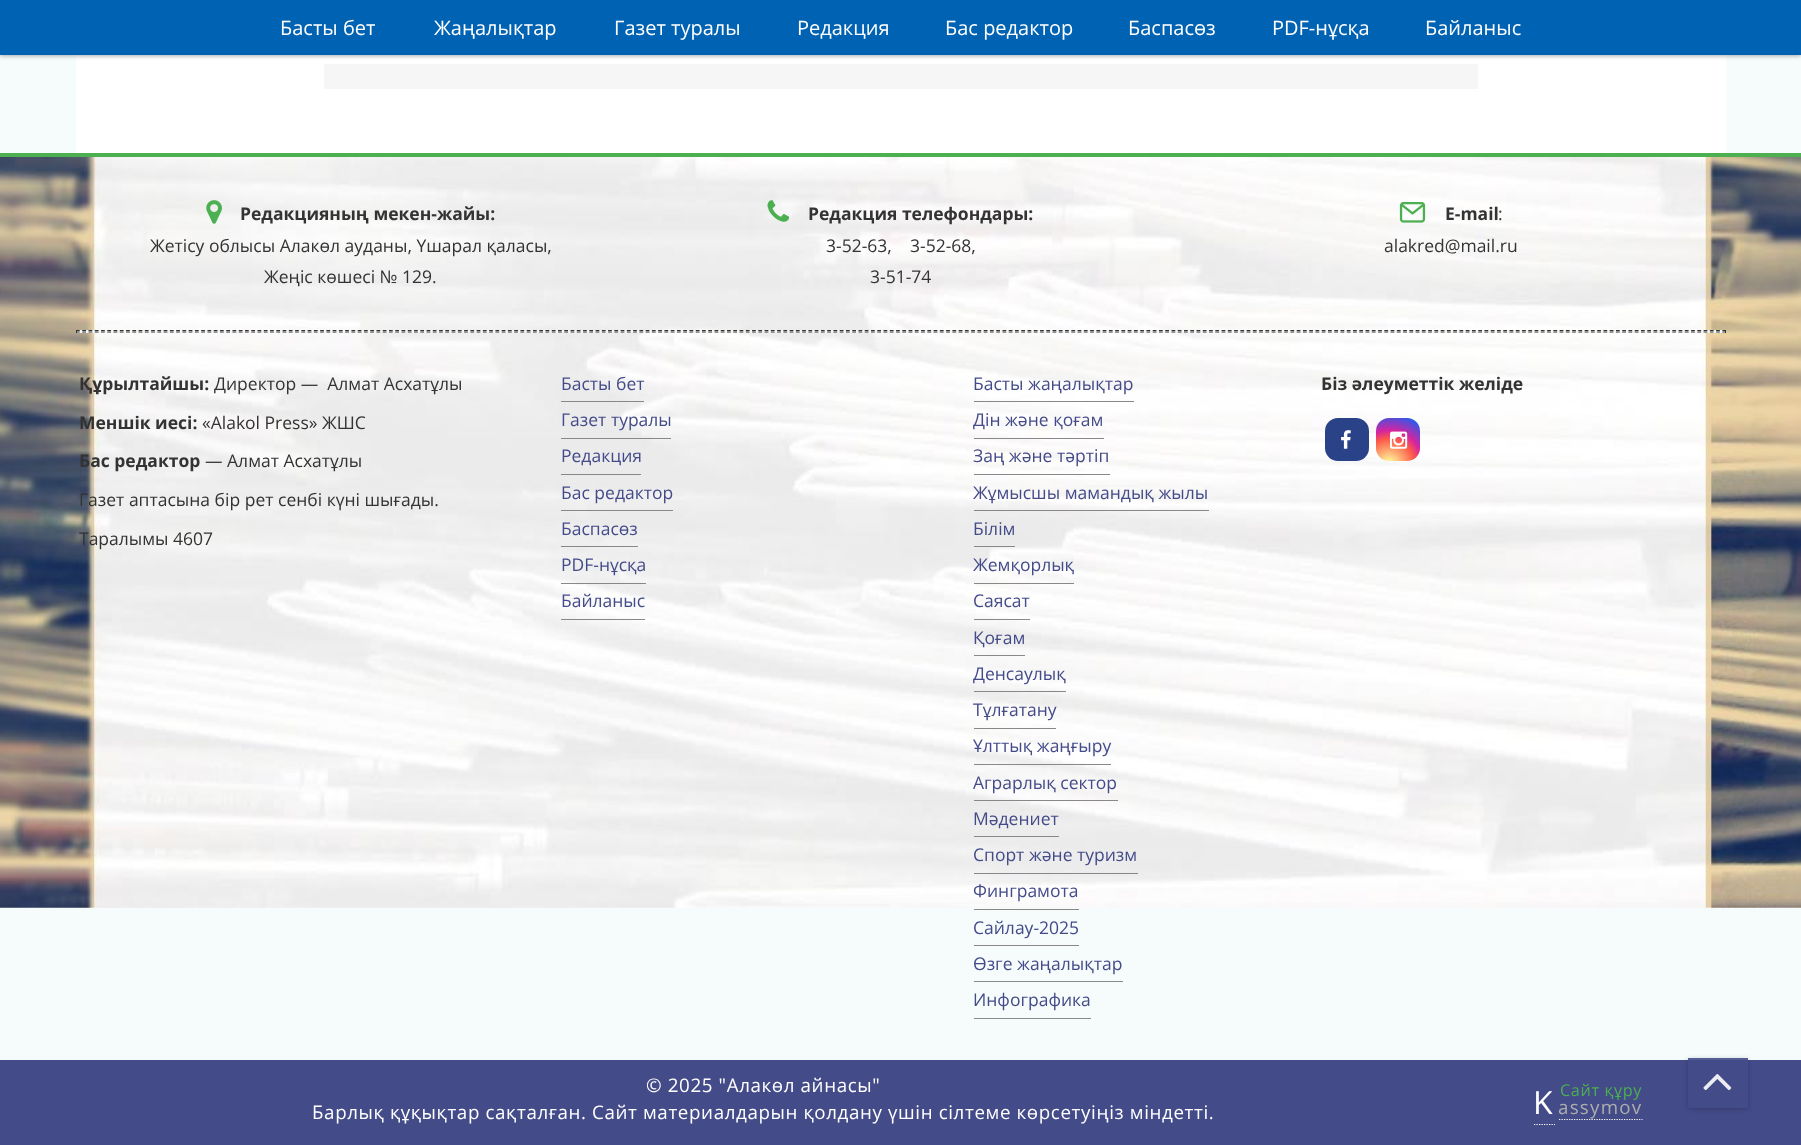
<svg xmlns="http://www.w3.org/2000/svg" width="1801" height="1145">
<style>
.a{font:20px Open Sans;fill:#fff}
.b{font:bold 17.5px Open Sans;fill:#333}
.c{font:17.5px Open Sans;fill:#333}
.d{font:17.5px Open Sans;fill:#444b89}
.e{font:18.75px Open Sans;letter-spacing:0.62px;fill:#fff}
.f{font:32px Open Sans;letter-spacing:1.25px;fill:#fff}
.g{font:16.25px Open Sans;letter-spacing:0.62px;fill:#4caf50}
.h{font:18.75px Open Sans;letter-spacing:1.25px;fill:#adadae}
</style>
<defs>
<radialGradient id="g1" gradientUnits="userSpaceOnUse" cx="1389" cy="464" r="56"><stop offset="0" stop-color="#fdf497"/><stop offset="0.05" stop-color="#fdf497"/><stop offset="0.45" stop-color="#fd5949"/><stop offset="0.6" stop-color="#d6249f"/><stop offset="0.9" stop-color="#285aeb"/></radialGradient>
<clipPath id="clip1"><path d="M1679 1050h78v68h-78zm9 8h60v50h-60z" clip-rule="evenodd"/></clipPath>
</defs>
<rect width="100%" height="100%" fill="#f6fcfc"/>
<path fill="#fff" d="M76 55h1650v98H76z"/>
<path fill="#86868ab3" filter="blur(2px)" d="M0 1h1801v55H0z"/>
<path fill="#0062b3" d="M0 0h1801v55H0z"/>
<path fill="#f6f6f6" d="M324 64h1154v25H324z"/>
<image href="1.png" x="0" y="157" width="1801" height="751"/>
<path fill="#4caf50" d="M0 153h1801v4H0z"/>
<image href="2.png" x="206" y="200" width="16" height="24"/>
<image href="3.png" x="767" y="200" width="23" height="22"/>
<image href="4.png" x="1399" y="202" width="27" height="21"/>
<path fill="#f5f5f5" d="M76 330h1650v3H76z"/>
<path fill="none" stroke="#333" stroke-width="1.2" stroke-dasharray="3.75 2.51" d="M76 330.5h1650"/>
<path fill="#333" d="M1725 330h1v3H1725z"/>
<path fill="none" stroke="#333" stroke-width="1.2" stroke-dasharray="3.75 2.51" d="M76 332h1650"/>
<path fill="#333" d="M76 330h1v3H76z"/>
<path fill="#888" d="M561 401h83v1H561z"/>
<path fill="#888" d="M561 438h110v1H561z"/>
<path fill="#888" d="M561 474h80v1H561z"/>
<path fill="#888" d="M561 510h112v1H561z"/>
<path fill="#888" d="M561 546h77v1H561z"/>
<path fill="#888" d="M561 583h85v1H561z"/>
<path fill="#888" d="M561 619h84v1H561z"/>
<path fill="#888" d="M974 401h160v1H974z"/>
<path fill="#888" d="M974 438h130v1H974z"/>
<path fill="#888" d="M974 474h136v1H974z"/>
<path fill="#888" d="M974 510h235v1H974z"/>
<path fill="#888" d="M974 546h41v1H974z"/>
<path fill="#888" d="M974 583h100v1H974z"/>
<path fill="#888" d="M974 619h56v1H974z"/>
<path fill="#888" d="M974 655h51v1H974z"/>
<path fill="#888" d="M974 691h92v1H974z"/>
<path fill="#888" d="M974 728h82v1H974z"/>
<path fill="#888" d="M974 764h137v1H974z"/>
<path fill="#888" d="M974 800h144v1H974z"/>
<path fill="#888" d="M974 836h85v1H974z"/>
<path fill="#888" d="M974 873h164v1H974z"/>
<path fill="#888" d="M974 909h105v1H974z"/>
<path fill="#888" d="M974 945h105v1H974z"/>
<path fill="#888" d="M974 981h149v1H974z"/>
<path fill="#888" d="M974 1018h117v1H974z"/>
<rect fill="#2a4288" x="1325" y="418" width="44" height="43" rx="13"/>
<image href="5.png" x="1341" y="430" width="10" height="19"/>
<rect fill="url(#g1)" x="1376" y="418" width="44" height="43" rx="13"/>
<image href="6.png" x="1390" y="431" width="18" height="18"/>
<path fill="#444b89" d="M0 1060h1801v85H0z"/>
<path fill="none" stroke="#fff" stroke-width="1.2" stroke-dasharray="1.25 1.25" d="M1534 1124.5h21"/>
<path fill="none" stroke="#fff" stroke-width="1.2" stroke-dasharray="1.25 1.25" d="M1559 1119.5h83.5"/>
<g clip-path="url(#clip1)">
<path fill="#00000036" filter="blur(2.5px)" d="M1688 1059h60v50H1688z"/>
</g>
<path fill="#444b89e6" d="M1688 1058h60v50H1688z"/>
<image href="7.png" x="1703" y="1074" width="29" height="17"/>
<text class="a" x="280" y="35">Басты бет</text>
<text class="a" x="434" y="35">Жаңалықтар</text>
<text class="a" x="614" y="35">Газет туралы</text>
<text class="a" x="797" y="35">Редакция</text>
<text class="a" x="945" y="35">Бас редактор</text>
<text class="a" x="1128" y="35">Баспасөз</text>
<text class="a" x="1272" y="35">PDF-нұсқа</text>
<text class="a" x="1425" y="35">Байланыс</text>
<text class="b" x="240" y="220">Редакцияның мекен-жайы:</text>
<text class="c" x="150" y="252">Жетісу облысы Алакөл ауданы, Үшарал қаласы,</text>
<text class="c" x="264" y="283">Жеңіс көшесі № 129.</text>
<text class="b" x="808" y="220">Редакция телефондары:</text>
<text class="c" xml:space="preserve" x="826" y="252">3-52-63,    3-52-68,</text>
<text class="c" x="870" y="283">3-51-74</text>
<text class="b" x="1445" y="220">E-mail</text>
<text class="c" x="1498" y="220">:</text>
<text class="c" x="1384" y="252">alakred@mail.ru</text>
<text class="b" x="79" y="390">Құрылтайшы:</text>
<text class="c" xml:space="preserve" x="214" y="390">Директор —  Алмат Асхатұлы</text>
<text class="b" x="79" y="429">Меншік иесі:</text>
<text class="c" x="202" y="429">«Alakol Press» ЖШС</text>
<text class="b" x="79" y="467">Бас редактор</text>
<text class="c" x="205" y="467">— Алмат Асхатұлы</text>
<text class="c" x="79" y="506">Газет аптасына бір рет сенбі күні шығады.</text>
<text class="c" x="79" y="545">Таралымы 4607</text>
<text class="d" x="561" y="390">Басты бет</text>
<text class="d" x="561" y="426">Газет туралы</text>
<text class="d" x="561" y="462">Редакция</text>
<text class="d" x="561" y="499">Бас редактор</text>
<text class="d" x="561" y="535">Баспасөз</text>
<text class="d" x="561" y="571">PDF-нұсқа</text>
<text class="d" x="561" y="607">Байланыс</text>
<text class="d" x="973" y="390">Басты жаңалықтар</text>
<text class="d" x="973" y="426">Дін және қоғам</text>
<text class="d" x="973" y="462">Заң және тәртіп</text>
<text class="d" x="973" y="499">Жұмысшы мамандық жылы</text>
<text class="d" x="973" y="535">Білім</text>
<text class="d" x="973" y="571">Жемқорлық</text>
<text class="d" x="973" y="607">Саясат</text>
<text class="d" x="973" y="644">Қоғам</text>
<text class="d" x="973" y="680">Денсаулық</text>
<text class="d" x="973" y="716">Тұлғатану</text>
<text class="d" x="973" y="752">Ұлттық жаңғыру</text>
<text class="d" x="973" y="789">Аграрлық сектор</text>
<text class="d" x="973" y="825">Мәдениет</text>
<text class="d" x="973" y="861">Спорт және туризм</text>
<text class="d" x="973" y="897">Финграмота</text>
<text class="d" x="973" y="934">Сайлау-2025</text>
<text class="d" x="973" y="970">Өзге жаңалықтар</text>
<text class="d" x="973" y="1006">Инфографика</text>
<text class="b" x="1321" y="390">Біз әлеуметтік желіде</text>
<text class="e" x="646" y="1092">© 2025 "Алакөл айнасы"</text>
<text class="e" x="312" y="1119">Барлық құқықтар сақталған. Сайт материалдарын қолдану үшін сілтеме көрсетуіңіз міндетті.</text>
<text class="f" x="1533" y="1114">K</text>
<text class="g" x="1560" y="1096">Сайт құру</text>
<text class="h" x="1558" y="1114">assymov</text>
</svg>
